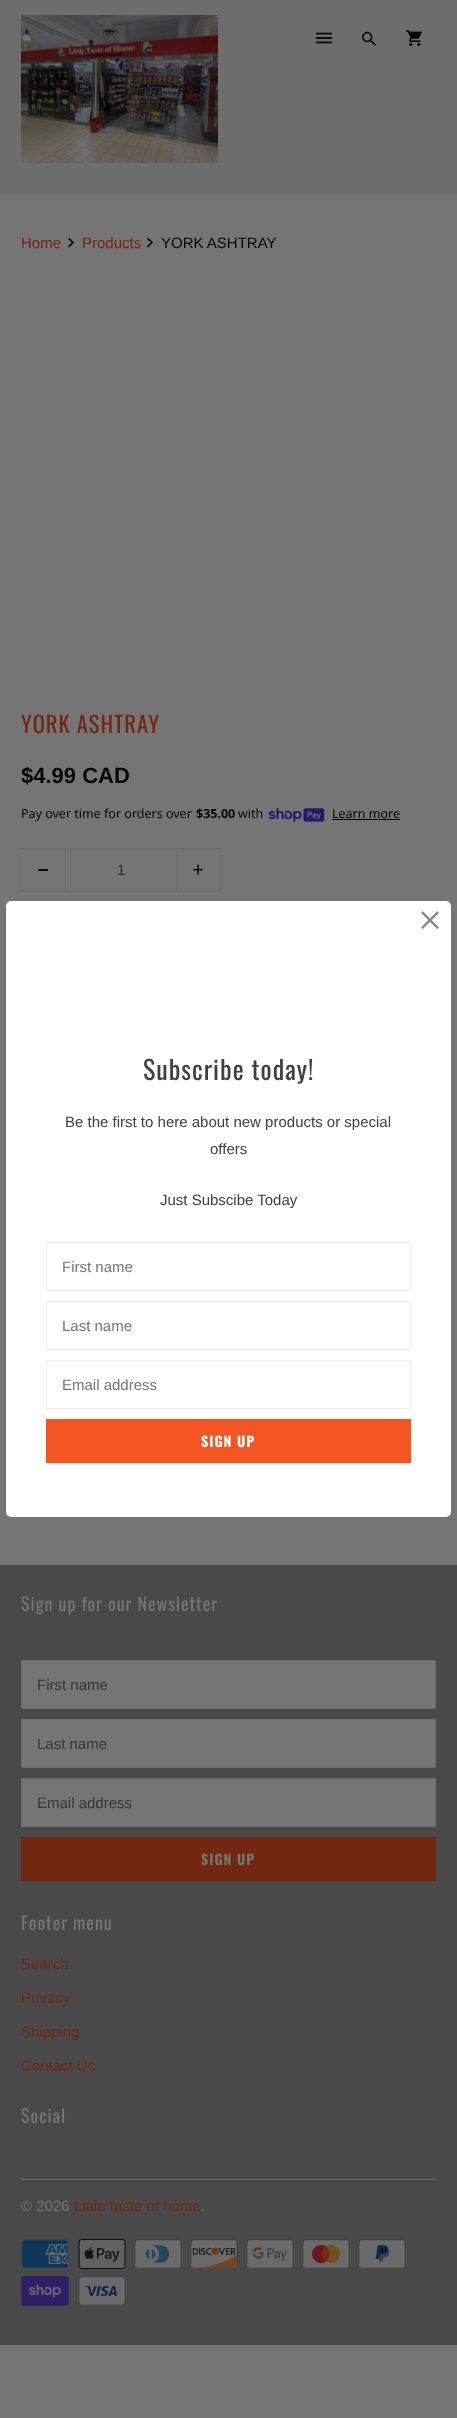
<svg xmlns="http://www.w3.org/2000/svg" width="457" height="2418">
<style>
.a{font:15px Liberation Sans;fill:#712710}
.b{font:15px Liberation Sans;fill:#060606}
.c{font:22.5px Oswald;letter-spacing:1px;fill:#712710}
.d{font:bold 22px Liberation Sans;fill:#060606}
.e{font:12.5px Noto Sans;fill:#060606}
.f{font:bold 12.5px Noto Sans;fill:#060606}
.g{font:15px Liberation Sans;fill:#25292b}
.h{font:26px Oswald;letter-spacing:1px;fill:#404040}
.i{font:15px Liberation Sans;fill:#404040}
.j{font:15px Liberation Sans;fill:#757575}
.k{font:bold 14px Oswald;letter-spacing:1px;fill:#fff}
.l{font:18px Oswald;letter-spacing:1px;fill:#757575}
.m{font:15px Liberation Sans;fill:#363636}
.n{font:bold 14px Oswald;letter-spacing:1px;fill:#757575}
</style>
<rect width="100%" height="100%" fill="#757575"/>
<path fill="#6d6d6d" d="M0 0h457v194H0z"/>
<image href="1.png" x="21" y="15" width="197" height="148"/>
<image href="2.png" x="316" y="32" width="16" height="12"/>
<image href="3.png" x="362" y="31" width="14" height="15"/>
<image href="4.png" x="406" y="30" width="16" height="16"/>
<image href="5.png" x="68" y="237" width="6" height="11"/>
<image href="5.png" x="147" y="237" width="6" height="11"/>
<image href="6.png" x="268" y="808" width="57" height="14"/>
<path fill="#060606" d="M332 819h68v1H332z"/>
<path fill="#6d6d6d" d="M21 848h44v1H21z"/>
<path fill="#6d6d6d" d="M21 891h44v1H21z"/>
<path fill="#6d6d6d" d="M21 848h1v44H21z"/>
<path fill="#060606" d="M38 869h10v2H38z"/>
<path fill="none" stroke="#6d6d6d" d="M65.5 848.5h111v43H65.5z"/>
<path fill="#6d6d6d" d="M177 848h44v1H177z"/>
<path fill="#6d6d6d" d="M220 848h1v44H220z"/>
<path fill="#6d6d6d" d="M177 891h44v1H177z"/>
<image href="7.png" x="193" y="864" width="10" height="11"/>
<rect fill="#fff" x="6" y="901" width="445" height="616" rx="5"/>
<image href="8.png" x="421" y="911" width="18" height="18"/>
<path fill="none" stroke="#eee" d="M46.5 1242.5h364v48H46.5z"/>
<path fill="none" stroke="#eee" d="M46.5 1301.5h364v48H46.5z"/>
<path fill="none" stroke="#eee" d="M46.5 1360.5h364v48H46.5z"/>
<path fill="#f55423" d="M46 1419h365v44H46z"/>
<path fill="#4a4949" d="M0 1565h457v780H0z"/>
<path fill="#757575" stroke="#6d6d6d" d="M21.5 1660.5h414v48H21.5z"/>
<path fill="#757575" stroke="#6d6d6d" d="M21.5 1719.5h414v48H21.5z"/>
<path fill="#757575" stroke="#6d6d6d" d="M21.5 1778.5h414v48H21.5z"/>
<path fill="#712710" d="M21 1837h415v44H21z"/>
<path fill="#6d6d6d" d="M21 2179h415v1H21z"/>
<image href="9.png" x="21" y="2239" width="48" height="30"/>
<image href="10.png" x="78" y="2239" width="48" height="30"/>
<image href="11.png" x="134" y="2239" width="48" height="30"/>
<image href="12.png" x="190" y="2239" width="48" height="30"/>
<image href="13.png" x="246" y="2239" width="48" height="30"/>
<image href="14.png" x="302" y="2239" width="48" height="30"/>
<image href="15.png" x="358" y="2239" width="48" height="30"/>
<image href="16.png" x="21" y="2276" width="48" height="30"/>
<image href="17.png" x="78" y="2276" width="48" height="30"/>
<text class="a" x="21" y="248">Home</text>
<text class="a" x="82" y="248">Products</text>
<text class="b" x="161" y="248">YORK ASHTRAY</text>
<text class="c" x="21" y="733">YORK ASHTRAY</text>
<text class="d" x="21" y="783">$4.99 CAD</text>
<text class="e" x="21" y="818">Pay over time for orders over</text>
<text class="f" x="196" y="818">$35.00</text>
<text class="e" x="238" y="818">with</text>
<text class="e" x="332" y="818">Learn more</text>
<text class="g" x="117" y="875">1</text>
<text class="h" x="143" y="1080">Subscribe today!</text>
<text class="i" x="65" y="1127">Be the first to here about new products or special</text>
<text class="i" x="210" y="1154">offers</text>
<text class="i" x="160" y="1205">Just Subscibe Today</text>
<text class="j" x="62" y="1272">First name</text>
<text class="j" x="62" y="1331">Last name</text>
<text class="j" x="62" y="1390">Email address</text>
<text class="k" x="201" y="1447">SIGN UP</text>
<text class="l" x="21" y="1611">Sign up for our Newsletter</text>
<text class="m" x="37" y="1690">First name</text>
<text class="m" x="37" y="1749">Last name</text>
<text class="m" x="37" y="1808">Email address</text>
<text class="n" x="201" y="1865">SIGN UP</text>
<text class="l" x="21" y="1930">Footer menu</text>
<text class="a" x="21" y="1969">Search</text>
<text class="a" x="21" y="2003">Privacy</text>
<text class="a" x="21" y="2037">Shipping</text>
<text class="a" x="21" y="2071">Contact Us</text>
<text class="l" x="21" y="2123">Social</text>
<text class="j" x="21" y="2211">© 2026</text>
<text class="a" x="74" y="2211">Little taste of home</text>
<text class="j" x="201" y="2211">.</text>
</svg>
